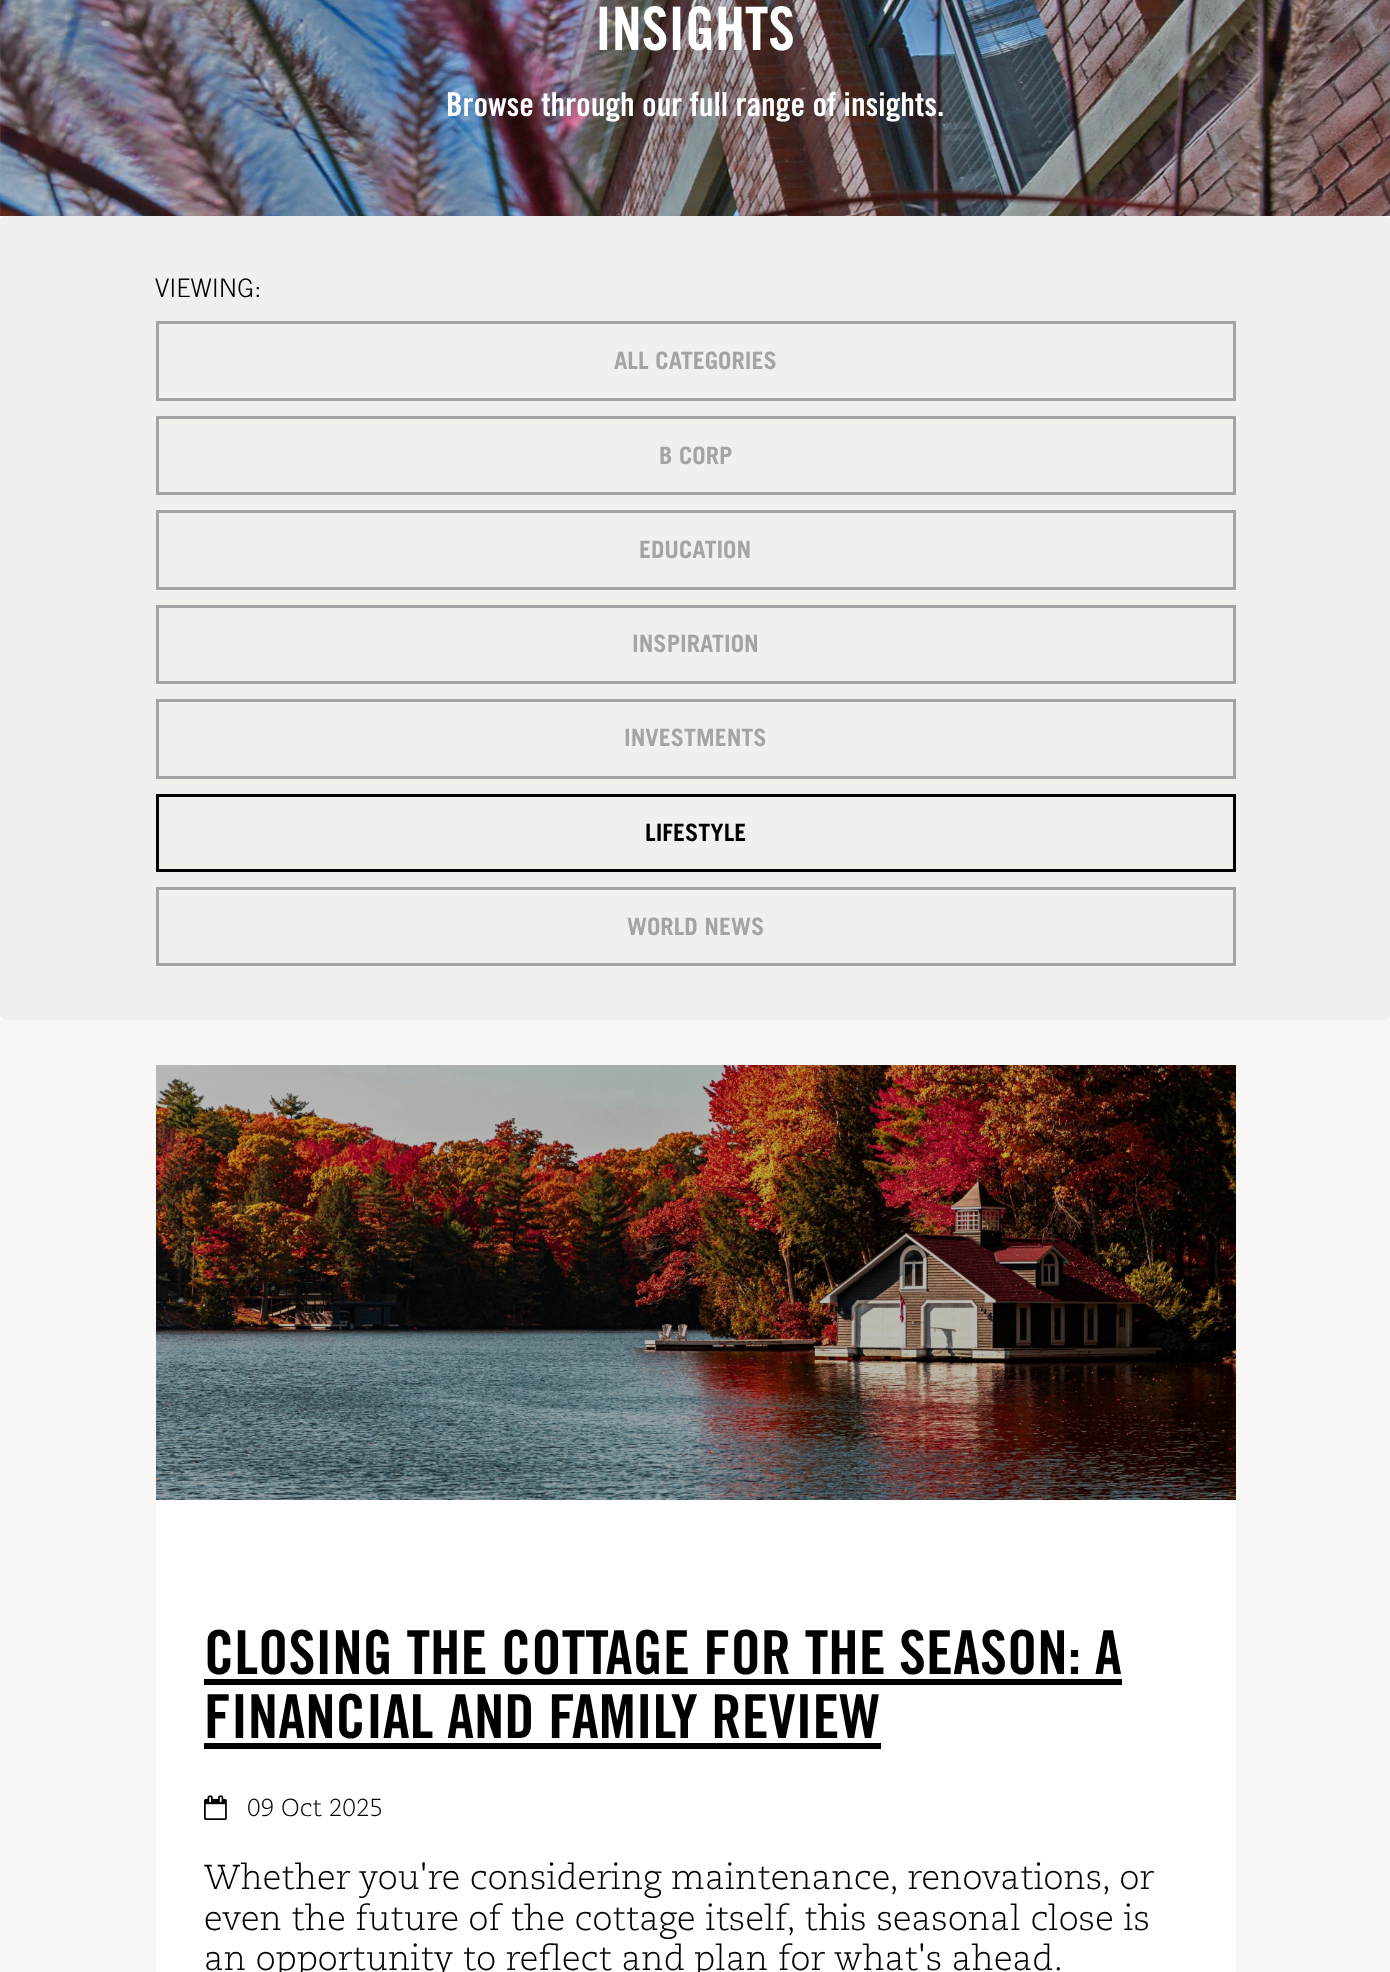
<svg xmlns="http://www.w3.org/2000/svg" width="1390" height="1972">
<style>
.a{font:bold 60px 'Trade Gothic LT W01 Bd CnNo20';fill:#fff}
.b{font:bold 33px 'Trade Gothic LT W01 Bd CnNo20';fill:#fff}
.c{font:300 25.5px Trade Gothic;fill:#000}
.d{font:bold 24px Trade Gothic;fill:#a4a4a4}
.e{font:bold 24px Trade Gothic;fill:#000}
.f{font:bold 60.75px 'Trade Gothic LT W01 Bd CnNo20';fill:#000}
.g{font:300 24.5px 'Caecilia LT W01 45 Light';fill:#000}
.h{font:300 34.5px 'Caecilia LT W01 45 Light';fill:#000}
</style>
<rect width="100%" height="100%" fill="#fff"/>
<image href="1.png" x="0" y="0" width="1390" height="216"/>
<rect fill="#f1f0ec" y="216" width="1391" height="804" rx="6"/>
<path fill="none" stroke="#a4a4a4" stroke-width="3" d="M157.5 322.5h1077v77H157.5z"/>
<path fill="none" stroke="#a4a4a4" stroke-width="3" d="M157.5 417.5h1077v76H157.5z"/>
<path fill="none" stroke="#a4a4a4" stroke-width="3" d="M157.5 511.5h1077v77H157.5z"/>
<path fill="none" stroke="#a4a4a4" stroke-width="3" d="M157.5 606.5h1077v76H157.5z"/>
<path fill="none" stroke="#a4a4a4" stroke-width="3" d="M157.5 700.5h1077v77H157.5z"/>
<path fill="none" stroke="#000" stroke-width="3" d="M157.5 795.5h1077v75H157.5z"/>
<path fill="none" stroke="#a4a4a4" stroke-width="3" d="M157.5 888.5h1077v76H157.5z"/>
<path fill="#f8f7f6" d="M0 1020h1390v952H0z"/>
<image href="2.png" x="156" y="1065" width="1080" height="435"/>
<path fill="#fff" d="M156 1500h1080v472H156z"/>
<path fill="#000" d="M204 1679h918v6H204z"/>
<path fill="#000" d="M204 1743h677v6H204z"/>
<image href="3.png" x="204" y="1795" width="23" height="25"/>
<text class="a" x="595" y="50">INSIGHTS</text>
<text class="b" x="446" y="116">Browse through our full range of insights.</text>
<text class="c" x="155" y="297">VIEWING:</text>
<text class="d" x="614" y="369">ALL CATEGORIES</text>
<text class="d" x="659" y="464">B CORP</text>
<text class="d" x="639" y="558">EDUCATION</text>
<text class="d" x="632" y="652">INSPIRATION</text>
<text class="d" x="624" y="746">INVESTMENTS</text>
<text class="e" x="645" y="841">LIFESTYLE</text>
<text class="d" x="627" y="935">WORLD NEWS</text>
<text class="f" x="204" y="1674">CLOSING THE COTTAGE FOR THE SEASON: A</text>
<text class="f" x="204" y="1738">FINANCIAL AND FAMILY REVIEW</text>
<text class="g" x="247" y="1816">09 Oct 2025</text>
<text class="h" x="204" y="1889">Whether you're considering maintenance, renovations, or</text>
<text class="h" x="204" y="1930">even the future of the cottage itself, this seasonal close is</text>
<text class="h" x="204" y="1970">an opportunity to reflect and plan for what's ahead.</text>
</svg>
